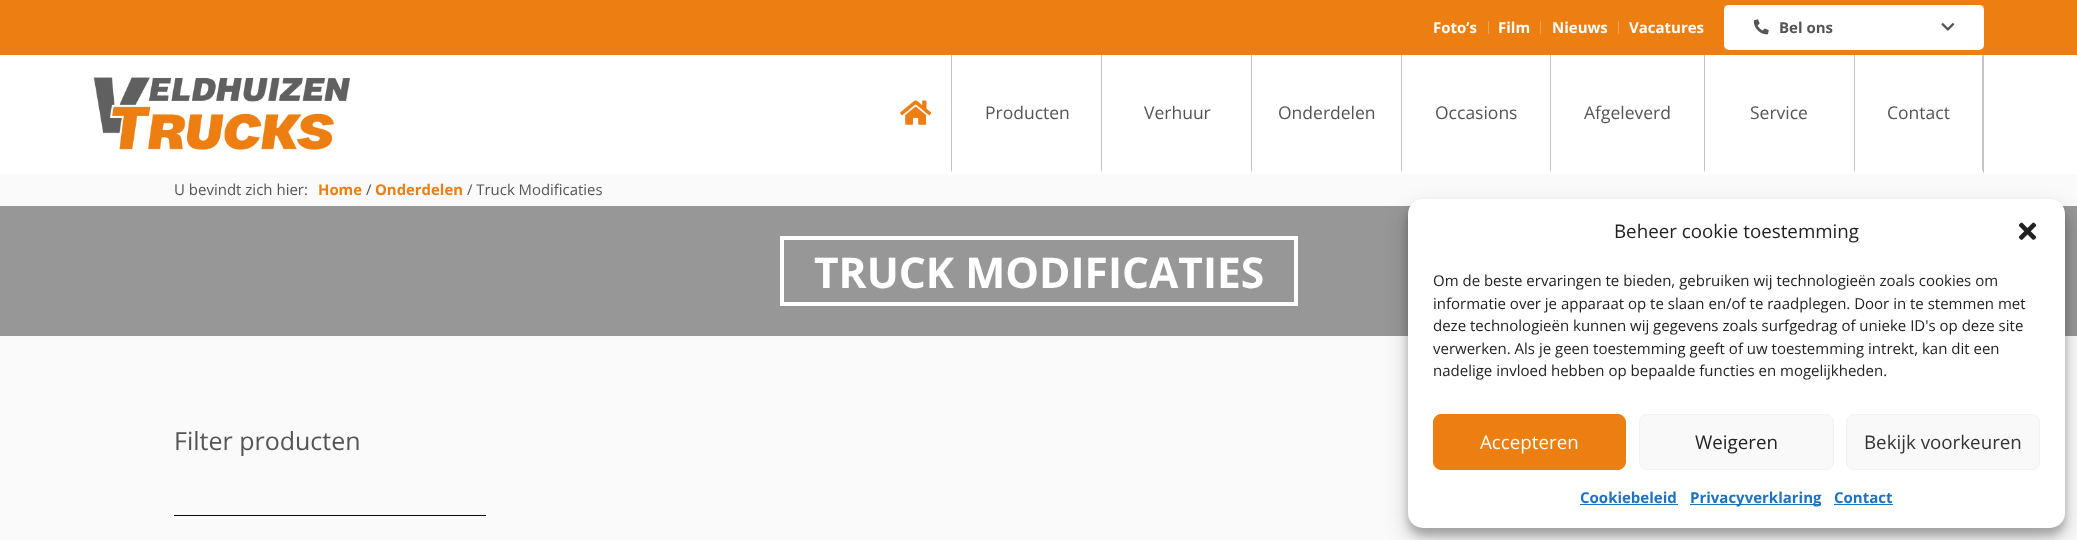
<svg xmlns="http://www.w3.org/2000/svg" width="2077" height="540">
<style>
.a{font:bold 15px Open Sans;fill:#fff}
.b{font:bold 15px Open Sans;fill:#555}
.c{font:17.5px Open Sans;fill:#555}
.d{font:15px Open Sans;fill:#555}
.e{font:bold 14.9px Open Sans;fill:#ed7e11}
.f{font:14.9px Open Sans;fill:#555}
.g{font:bold 42.5px Open Sans;fill:#fff}
.h{font:25px Open Sans;fill:#555}
.i{font:18.75px Open Sans;fill:#222}
.j{font:15px Open Sans;fill:#222}
.k{font:18.75px Open Sans;fill:#fff}
.l{font:18.75px Open Sans;fill:#333}
.m{font:bold 15px Open Sans;fill:#1e73be}
</style>
<defs>
<clipPath id="clip1"><path d="M953 55h150v119H953z"/></clipPath>
<clipPath id="clip2"><path d="M1103 55h150v119H1103z"/></clipPath>
<clipPath id="clip3"><path d="M1253 55h150v119H1253z"/></clipPath>
</defs>
<rect width="100%" height="100%" fill="#fafafa"/>
<path fill="#ed7e11" d="M0 0h2077v55H0z"/>
<path fill="#f2a051" d="M1488 21h1v13H1488z"/>
<path fill="#f2a051" d="M1540 21h1v13H1540z"/>
<path fill="#f2a051" d="M1618 21h1v13H1618z"/>
<path fill="#f19841" d="M1724 5h260v38c0 1-5 1-10 1h-240c-6 0-10 0-10-1z"/>
<rect fill="#fff" x="1724" y="5" width="260" height="45" rx="5"/>
<image href="1.png" x="1753" y="19" width="16" height="16"/>
<image href="2.png" x="1941" y="23" width="14" height="8"/>
<path fill="#fff" d="M0 55h2077v119H0z"/>
<image href="3.png" x="93" y="77" width="257" height="73"/>
<path fill="#c4c4c4" d="M952 55v119l-1-4v-115z"/>
<path fill="#fff" d="M952 174h-72v-4h71z"/>
<image href="4.png" x="900" y="100" width="31" height="25"/>
<path fill="#c4c4c4" d="M1102 55v119l-1-4v-115z"/>
<g clip-path="url(#clip1)">
<path fill="#fff" d="M1102 174h-150v-4h149z"/>
</g>
<path fill="#c4c4c4" d="M1252 55v119l-1-4v-115z"/>
<g clip-path="url(#clip2)">
<path fill="#fff" d="M1252 174h-150v-4h149z"/>
</g>
<path fill="#c4c4c4" d="M1402 55v119l-1-4v-115z"/>
<g clip-path="url(#clip3)">
<path fill="#fff" d="M1402 174h-150v-4h149z"/>
</g>
<path fill="#c4c4c4" d="M1551 55v119l-1-4v-115z"/>
<path fill="#fff" d="M1551 174h-149v-4h148z"/>
<path fill="#c4c4c4" d="M1705 55v119l-1-4v-115z"/>
<path fill="#fff" d="M1705 174h-154v-4h153z"/>
<path fill="#c4c4c4" d="M1855 55v119l-1-4v-115z"/>
<path fill="#fff" d="M1855 174h-150v-4h149z"/>
<path fill="#c4c4c4" d="M1984 55v119l-2-4v-115z"/>
<path fill="#fff" d="M1984 174h-129v-4h127z"/>
<path fill="#979797" d="M0 206h2077v130H0z"/>
<path fill="none" stroke="#fff" stroke-width="4" d="M782 238h514v66H782z"/>
<path fill="#0c0d0e" d="M174 515h312v1H174z"/>
<rect fill="#0000003b" filter="blur(4px)" x="1408" y="206" width="657" height="329" rx="15"/>
<rect fill="#00000030" filter="blur(12.5px)" x="1408" y="211" width="657" height="329" rx="15"/>
<rect fill="#fff" x="1408" y="199" width="657" height="329" rx="15"/>
<image href="5.png" x="2018" y="222" width="19" height="18"/>
<rect fill="#ed7e11" stroke="#ed7e11" x="1433.5" y="414.5" width="192" height="55" rx="7.5"/>
<rect fill="#f9f9f9" stroke="#f2f2f2" x="1639.5" y="414.5" width="194" height="55" rx="7.5"/>
<rect fill="#f9f9f9" stroke="#f2f2f2" x="1846.5" y="414.5" width="193" height="55" rx="7.5"/>
<path fill="#1e73be" d="M1580 504h98v1H1580z"/>
<path fill="#1e73be" d="M1690 504h131v1H1690z"/>
<path fill="#1e73be" d="M1834 504h59v1H1834z"/>
<text class="a" x="1433" y="33">Foto’s</text>
<text class="a" x="1498" y="33">Film</text>
<text class="a" x="1552" y="33">Nieuws</text>
<text class="a" x="1629" y="33">Vacatures</text>
<text class="b" x="1779" y="33">Bel ons</text>
<text class="c" x="985" y="119">Producten</text>
<text class="c" x="1144" y="119">Verhuur</text>
<text class="c" x="1278" y="119">Onderdelen</text>
<text class="c" x="1435" y="119">Occasions</text>
<text class="c" x="1584" y="119">Afgeleverd</text>
<text class="c" x="1750" y="119">Service</text>
<text class="c" x="1887" y="119">Contact</text>
<text class="d" x="174" y="195">U bevindt zich hier:</text>
<text class="e" x="318" y="195">Home</text>
<text class="f" x="366" y="195">/</text>
<text class="e" x="375" y="195">Onderdelen</text>
<text class="f" x="467" y="195">/ Truck Modificaties</text>
<text class="g" x="814" y="288">TRUCK MODIFICATIES</text>
<text class="h" x="174" y="450">Filter producten</text>
<text class="i" x="1614" y="238">Beheer cookie toestemming</text>
<text class="j" x="1433" y="286">Om de beste ervaringen te bieden, gebruiken wij technologieën zoals cookies om</text>
<text class="j" x="1433" y="309">informatie over je apparaat op te slaan en/of te raadplegen. Door in te stemmen met</text>
<text class="j" x="1433" y="331">deze technologieën kunnen wij gegevens zoals surfgedrag of unieke ID's op deze site</text>
<text class="j" x="1433" y="354">verwerken. Als je geen toestemming geeft of uw toestemming intrekt, kan dit een</text>
<text class="j" x="1433" y="376">nadelige invloed hebben op bepaalde functies en mogelijkheden.</text>
<text class="k" x="1480" y="449">Accepteren</text>
<text class="i" x="1695" y="449">Weigeren</text>
<text class="l" x="1864" y="449">Bekijk voorkeuren</text>
<text class="m" x="1580" y="503">Cookiebeleid</text>
<text class="m" x="1690" y="503">Privacyverklaring</text>
<text class="m" x="1834" y="503">Contact</text>
</svg>
